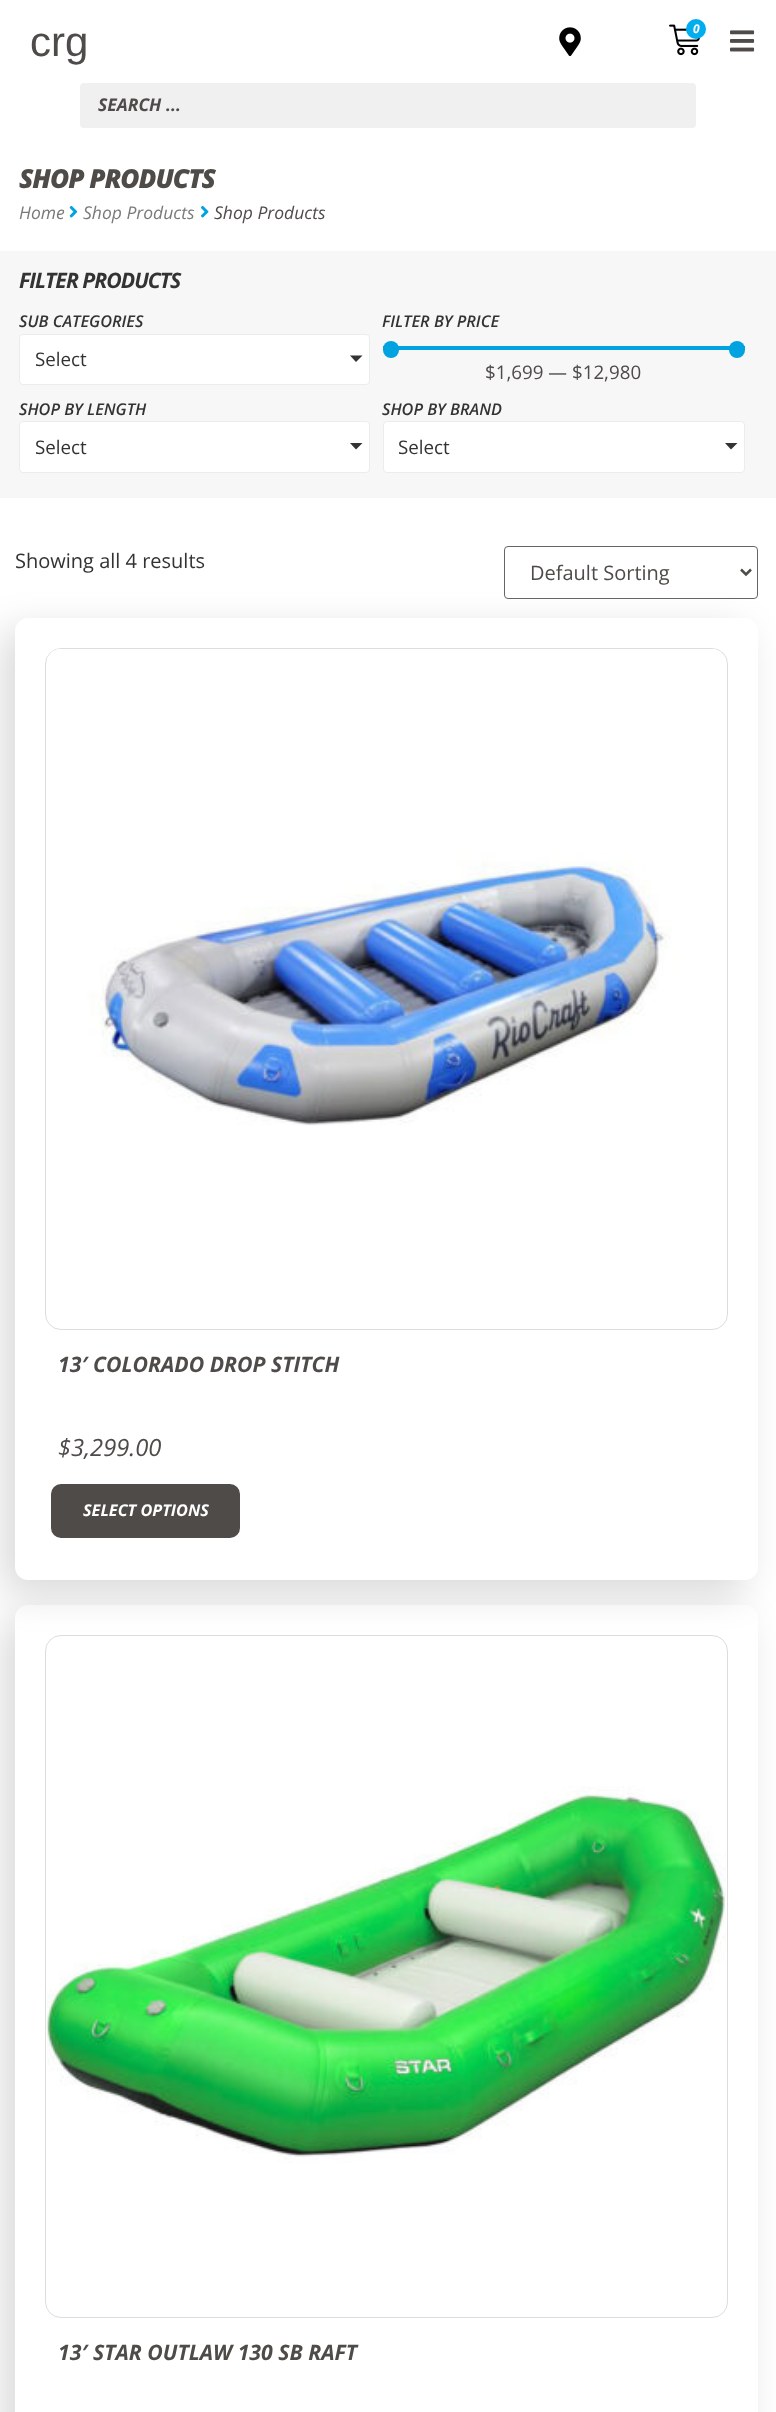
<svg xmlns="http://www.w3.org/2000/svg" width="776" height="2412">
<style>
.a{font:italic bold 12px Open Sans;fill:#fff}
.b{font:42px Liberation Sans;fill:#4e4b48}
.c{font:italic bold 17.5px Open Sans;fill:#4e4b48}
.d{font:italic 800 26.25px Open Sans;letter-spacing:-1.1px;fill:#4e4b48}
.e{font:italic 17.5px Open Sans;fill:#7a7a7a}
.f{font:italic 17.5px Open Sans;fill:#4e4b48}
.g{font:italic bold 21.25px Open Sans;letter-spacing:-1px;fill:#333}
.h{font:italic 600 16.25px Open Sans;fill:#333}
.i{font:18.75px Open Sans;fill:#333}
.j{font:18.75px Open Sans;fill:#4e4b48}
.k{font:20px Open Sans;fill:#333}
.l{font:20px Open Sans;fill:#4e4b48}
.m{font:italic bold 21.25px Open Sans;fill:#4e4b48}
.n{font:italic 23.75px Open Sans;fill:#4e4b48}
.o{font:italic bold 16.25px Open Sans;fill:#fff}
</style>
<defs>
<clipPath id="clip1"><path d="M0 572h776v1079h-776zm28 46h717c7 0 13 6 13 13v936c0 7-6 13-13 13h-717c-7 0-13-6-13-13v-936c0-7 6-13 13-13z" clip-rule="evenodd"/></clipPath>
<clipPath id="clip2"><path d="M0 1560h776v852h-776zm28 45h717c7 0 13 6 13 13v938c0 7-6 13-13 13h-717c-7 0-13-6-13-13v-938c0-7 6-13 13-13z" clip-rule="evenodd"/></clipPath>
</defs>
<rect width="100%" height="100%" fill="#fff"/>
<image href="1.png" x="559" y="27" width="22" height="29"/>
<image href="2.png" x="669" y="24" width="31" height="32"/>
<circle fill="#00aeef" cx="696" cy="29" r="10"/>
<image href="3.png" x="730" y="30" width="25" height="22"/>
<rect fill="#f0f0f0" x="80" y="83" width="616" height="45" rx="4"/>
<image href="4.png" x="69" y="205" width="9" height="13"/>
<image href="5.png" x="201" y="205" width="8" height="13"/>
<path fill="#f7f7f7" d="M0 251h776v247H0z"/>
<rect fill="#fff" stroke="#ebeced" x="19.5" y="334.5" width="350" height="50" rx="3.5"/>
<path fill="#333" d="M350 355.5h12.5l-6.5 6.5z"/>
<path fill="#00a3e0" d="M383 346h362v4H383z"/>
<rect fill="#00a3e0" x="383" y="341" width="16" height="17" rx="8"/>
<rect fill="#00a3e0" x="729" y="341" width="16" height="17" rx="8"/>
<rect fill="#fff" stroke="#ebeced" x="19.5" y="421.5" width="350" height="51" rx="3.5"/>
<path fill="#333" d="M350 443h12.5l-6.5 6.5z"/>
<rect fill="#fff" stroke="#ebeced" x="383.5" y="421.5" width="361" height="51" rx="3.5"/>
<path fill="#333" d="M725 443h12.5l-6.5 6.5z"/>
<rect fill="none" stroke="#666" x="504.5" y="546.5" width="253" height="52" rx="3.5"/>
<path fill="none" stroke="#4e4b48" stroke-width="2.5" d="M741 569.5l5 5l5-5"/>
<g clip-path="url(#clip1)">
<rect fill="#00000026" filter="blur(19px)" x="3" y="630" width="742" height="963" rx="13"/>
</g>
<rect fill="none" stroke="#ddd" x="45.5" y="648.5" width="682" height="681" rx="15.5"/>
<image href="6.png" x="47" y="649" width="674" height="477"/>
<rect fill="#4e4b48" x="51" y="1484" width="189" height="54" rx="10"/>
<g clip-path="url(#clip2)">
<rect fill="#00000026" filter="blur(19px)" x="3" y="1618" width="742" height="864" rx="13"/>
</g>
<rect fill="none" stroke="#ddd" x="45.5" y="1635.5" width="682" height="682" rx="15.5"/>
<image href="7.png" x="46" y="1786" width="680" height="377"/>
<text class="a" x="693" y="33">0</text>
<text class="b" x="30" y="56">crg</text>
<text class="c" x="98" y="111">SEARCH ...</text>
<text class="d" x="19" y="188">SHOP PRODUCTS</text>
<text class="e" x="19" y="219">Home</text>
<text class="e" x="83" y="219">Shop Products</text>
<text class="f" x="214" y="219">Shop Products</text>
<text class="g" x="19" y="288">FILTER PRODUCTS</text>
<text class="h" x="19" y="327">SUB CATEGORIES</text>
<text class="i" x="35" y="366">Select</text>
<text class="h" x="382" y="327">FILTER BY PRICE</text>
<text class="j" x="485" y="379">$1,699 — $12,980</text>
<text class="h" x="19" y="415">SHOP BY LENGTH</text>
<text class="i" x="35" y="454">Select</text>
<text class="h" x="382" y="415">SHOP BY BRAND</text>
<text class="i" x="398" y="454">Select</text>
<text class="k" x="15" y="568">Showing all 4 results</text>
<text class="l" x="530" y="580">Default Sorting</text>
<text class="m" x="58" y="1372">13′ COLORADO DROP STITCH</text>
<text class="n" x="58" y="1456">$3,299.00</text>
<text class="o" x="83" y="1516">SELECT OPTIONS</text>
<text class="m" x="58" y="2360">13′ STAR OUTLAW 130 SB RAFT</text>
</svg>
